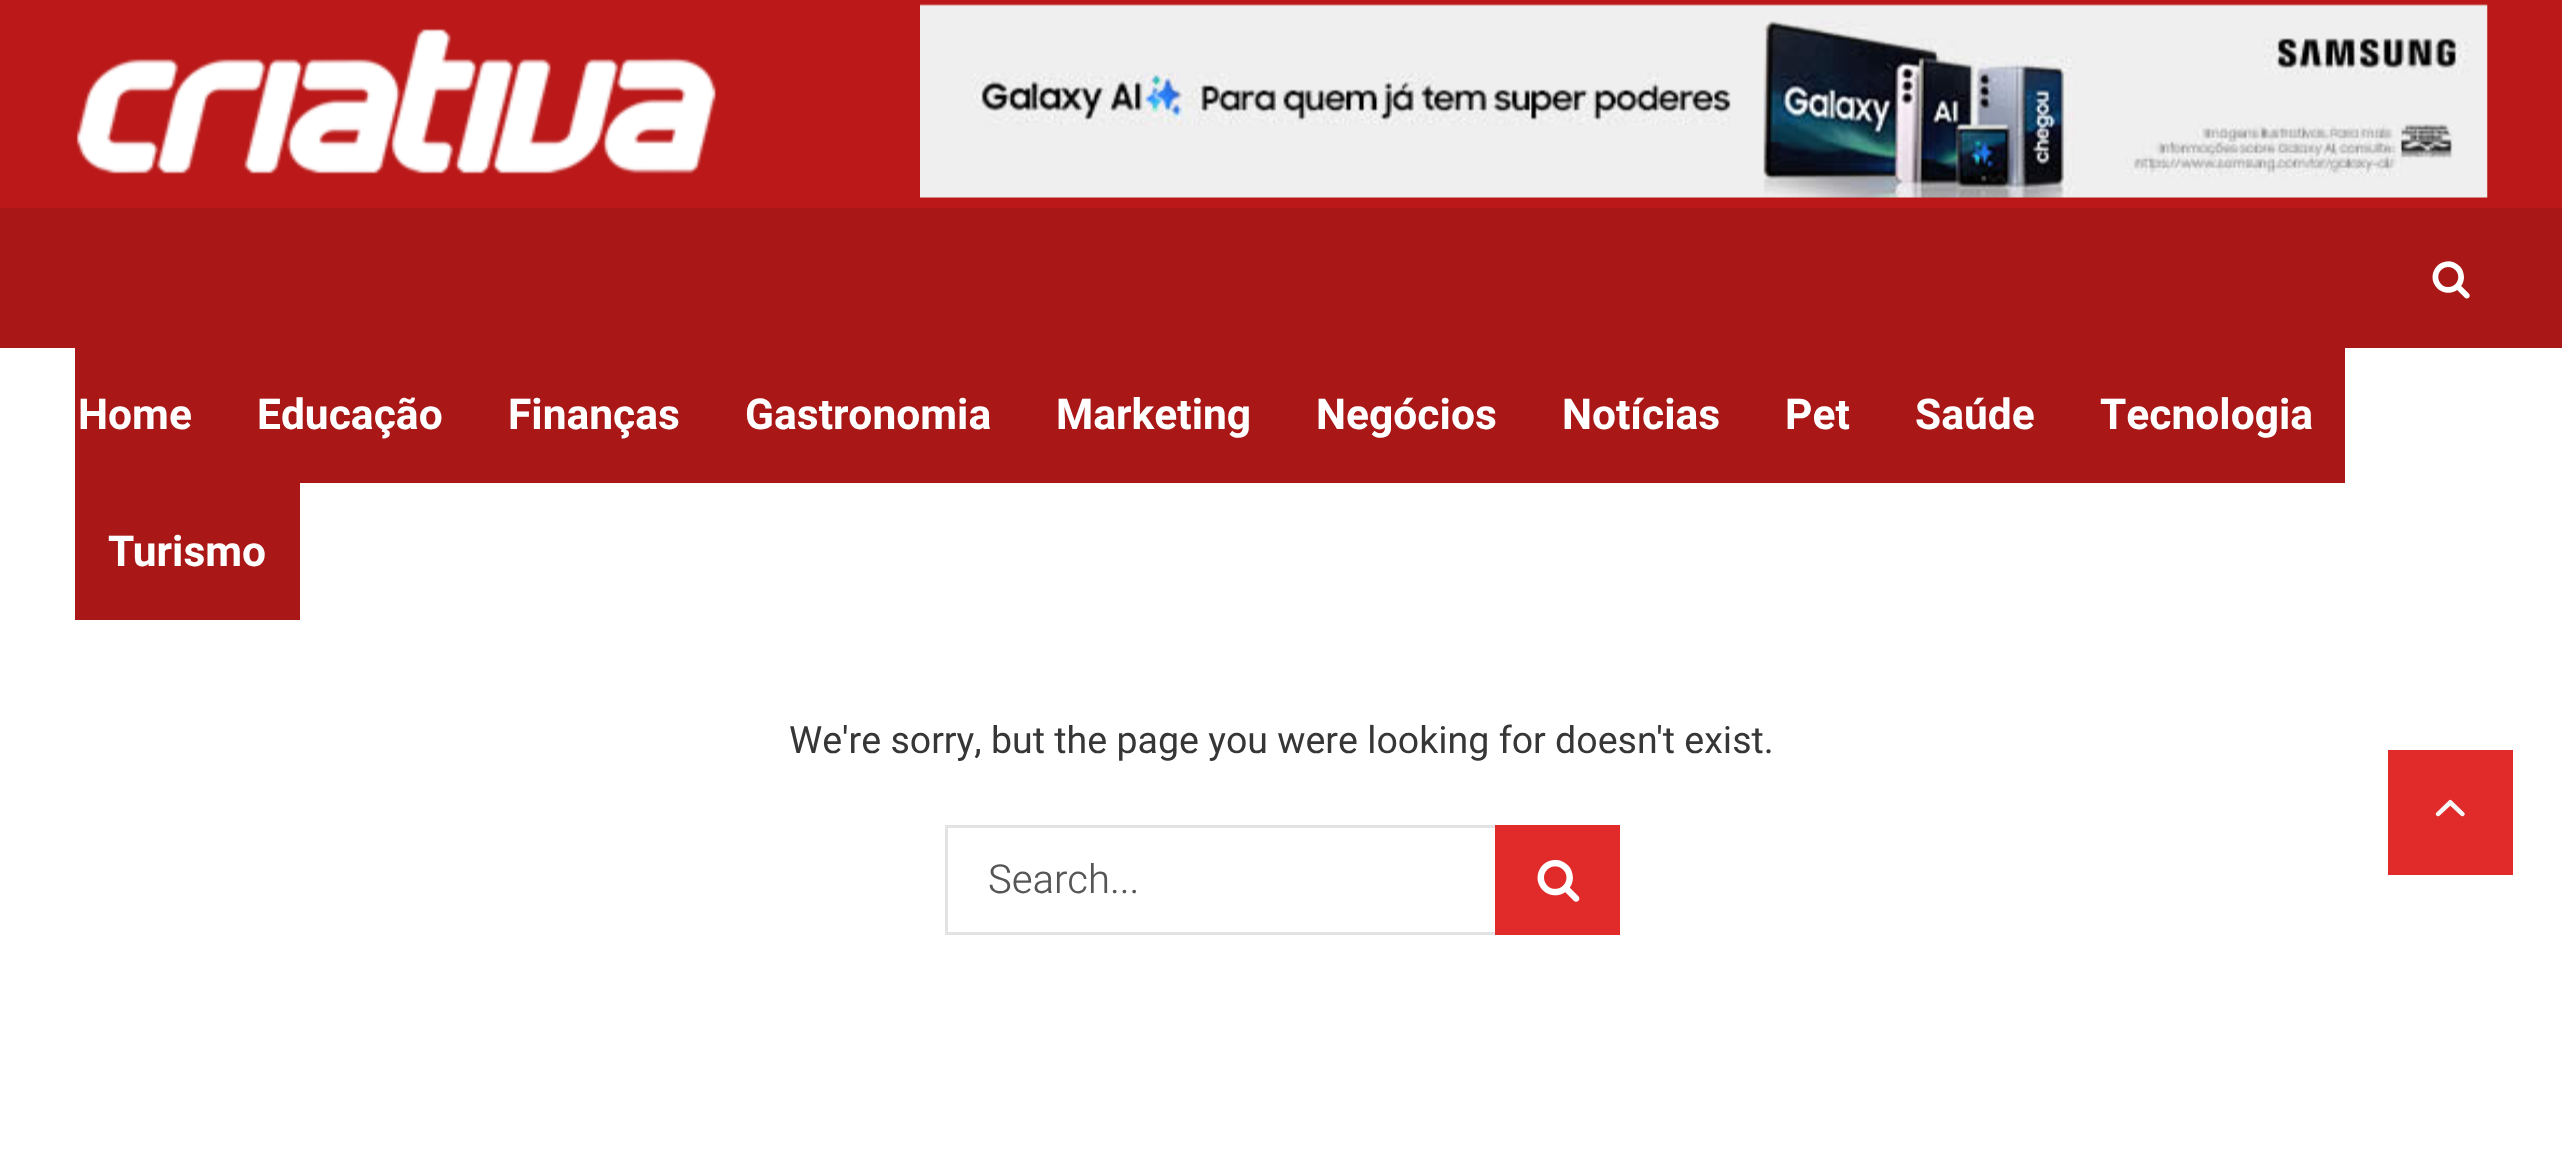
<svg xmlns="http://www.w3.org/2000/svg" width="2562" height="1150">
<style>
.a{font:bold 42.5px Heebo;fill:#fff}
.b{font:37.5px Heebo;fill:#363636}
.c{font:300 40px Heebo;fill:#565656}
</style>
<rect width="100%" height="100%" fill="#fff"/>
<path fill="#bb1919" d="M0 0h2562v208H0z"/>
<image href="1.png" x="76" y="28" width="640" height="146"/>
<image href="2.png" x="920" y="4" width="1568" height="194"/>
<path fill="#a91717" d="M0 208h2562v140H0z"/>
<image href="3.png" x="2432" y="261" width="38" height="38"/>
<path fill="#a91717" d="M75 348h2270v135H75z"/>
<path fill="#a91717" d="M75 483h225v137H75z"/>
<path fill="none" stroke="#e3e3e3" stroke-width="3" d="M946.5 826.5h672v107H946.5z"/>
<path fill="#e12b2b" d="M1495 825h125v110H1495z"/>
<image href="4.png" x="1537" y="859" width="43" height="43"/>
<path fill="#e12b2b" d="M2388 750h125v125H2388z"/>
<image href="5.png" x="2435" y="799" width="30" height="18"/>
<text class="a" x="78" y="429">Home</text>
<text class="a" x="257" y="429">Educação</text>
<text class="a" x="508" y="429">Finanças</text>
<text class="a" x="745" y="429">Gastronomia</text>
<text class="a" x="1056" y="429">Marketing</text>
<text class="a" x="1316" y="429">Negócios</text>
<text class="a" x="1562" y="429">Notícias</text>
<text class="a" x="1785" y="429">Pet</text>
<text class="a" x="1915" y="429">Saúde</text>
<text class="a" x="2100" y="429">Tecnologia</text>
<text class="a" x="108" y="566">Turismo</text>
<text class="b" x="789" y="753">We're sorry, but the page you were looking for doesn't exist.</text>
<text class="c" x="988" y="893">Search...</text>
</svg>
